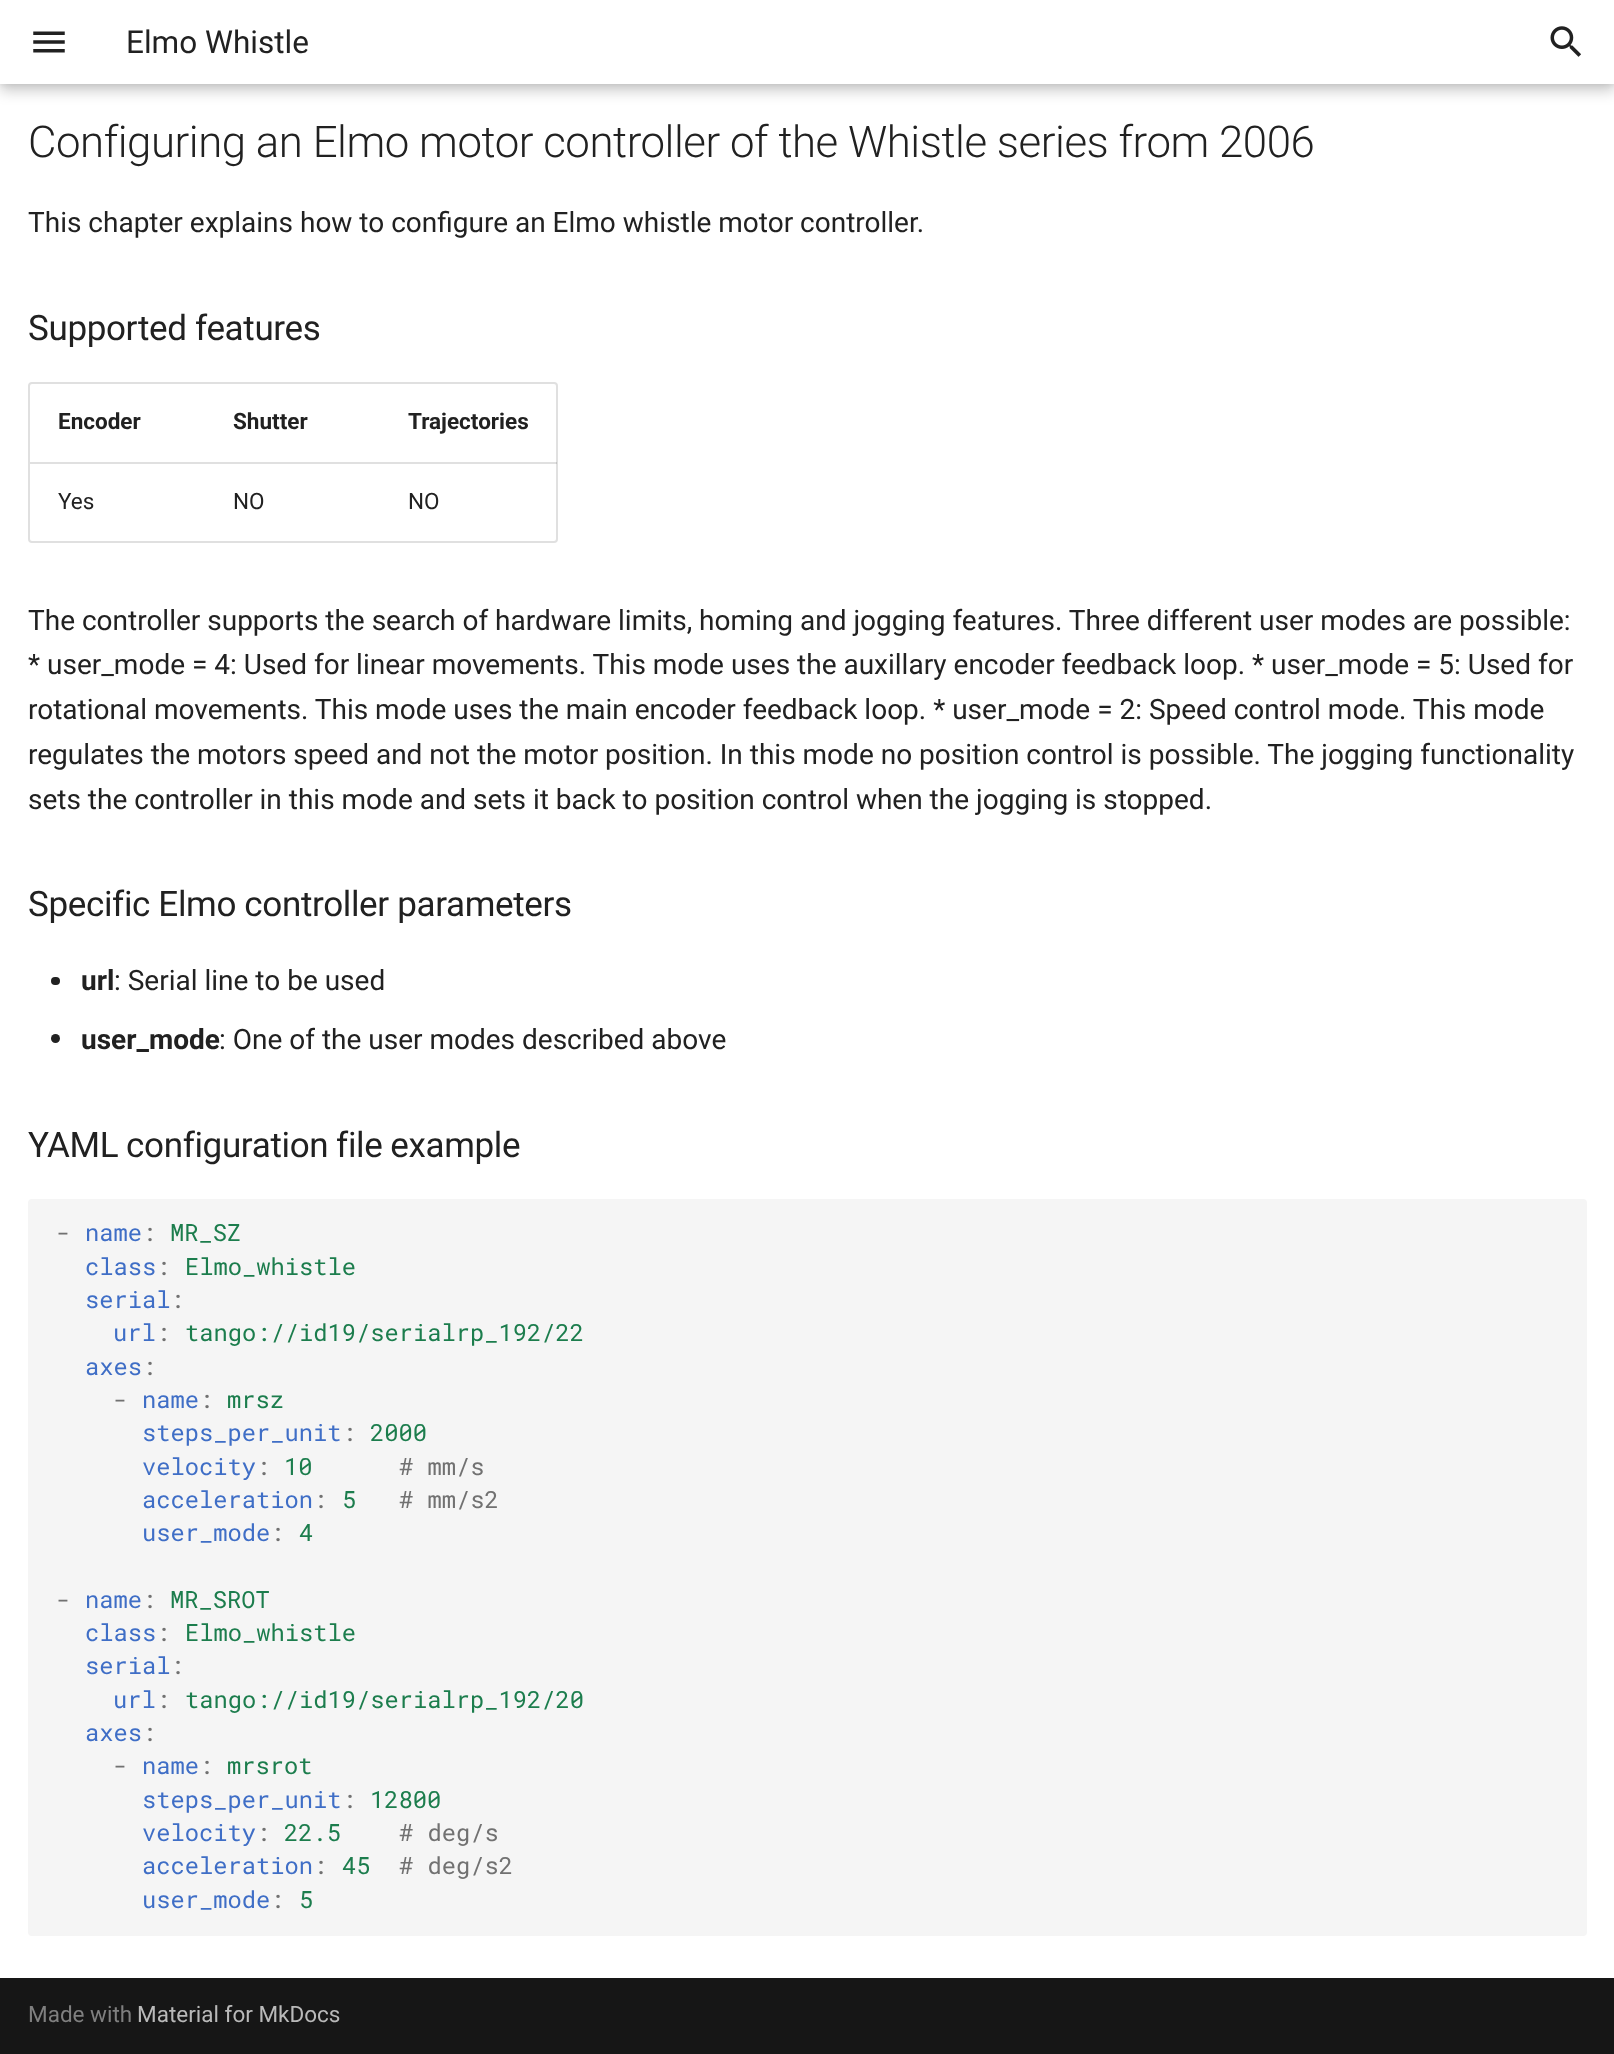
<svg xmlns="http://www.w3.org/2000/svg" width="1614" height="2054">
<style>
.a{font:31.5px Roboto;fill:#212121}
.b{font:300 43.75px Roboto;letter-spacing:-0.45px;fill:#212121}
.c{font:28px Roboto;fill:#212121}
.d{font:35px Roboto;letter-spacing:-0.35px;fill:#212121}
.e{font:bold 22.5px Roboto;fill:#212121}
.f{font:22.5px Roboto;fill:#212121}
.g{font:bold 28px Roboto;fill:#212121}
.h{font:23.75px Roboto Mono;fill:#717171}
.i{font:23.75px Roboto Mono;fill:#3f6ec6}
.j{font:23.75px Roboto Mono;fill:#1c7d4d}
.k{font:22.5px Roboto;fill:#7f7f7f}
.l{font:22.5px Roboto;fill:#b9b9b9}
</style>
<rect width="100%" height="100%" fill="#fff"/>
<path fill="#00000033" filter="blur(7px)" d="M0 7h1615v84H0z"/>
<path fill="#0000001a" filter="blur(3.5px)" d="M0 0h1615v84H0z"/>
<path fill="#fff" d="M0 0h1614v84H0z"/>
<image href="1.png" x="33" y="31" width="32" height="22"/>
<image href="2.png" x="1550" y="26" width="31" height="31"/>
<rect fill="none" stroke="#e0e0e0" stroke-width="2" x="29" y="383" width="528" height="159" rx="3"/>
<path fill="#e0e0e0" d="M30 462h350v2H30z"/>
<path fill="#0000001f" d="M380 462h177v2H380z"/>
<rect fill="#212121" x="51" y="977" width="9" height="8" rx="4"/>
<circle fill="#212121" cx="55.5" cy="1038.5" r="4.5"/>
<rect fill="#f5f5f5" x="28" y="1199" width="1559" height="737" rx="4"/>
<path fill="#161616" d="M0 1978h1614v76H0z"/>
<text class="a" x="126" y="53">Elmo Whistle</text>
<text class="b" x="28" y="157">Configuring an Elmo motor controller of the Whistle series from 2006</text>
<text class="c" x="28" y="232">This chapter explains how to configure an Elmo whistle motor controller.</text>
<text class="d" x="28" y="340">Supported features</text>
<text class="e" x="58" y="429">Encoder</text>
<text class="e" x="233" y="429">Shutter</text>
<text class="e" x="408" y="429">Trajectories</text>
<text class="f" x="58" y="509">Yes</text>
<text class="f" x="233" y="509">NO</text>
<text class="f" x="408" y="509">NO</text>
<text class="c" x="28" y="630">The controller supports the search of hardware limits, homing and jogging features. Three different user modes are possible:</text>
<text class="c" x="28" y="674">* user_mode = 4: Used for linear movements. This mode uses the auxillary encoder feedback loop. * user_mode = 5: Used for</text>
<text class="c" x="28" y="719">rotational movements. This mode uses the main encoder feedback loop. * user_mode = 2: Speed control mode. This mode</text>
<text class="c" x="28" y="764">regulates the motors speed and not the motor position. In this mode no position control is possible. The jogging functionality</text>
<text class="c" x="28" y="809">sets the controller in this mode and sets it back to position control when the jogging is stopped.</text>
<text class="d" x="28" y="916">Specific Elmo controller parameters</text>
<text class="g" x="81" y="990">url</text>
<text class="c" x="114" y="990">: Serial line to be used</text>
<text class="g" x="81" y="1049">user_mode</text>
<text class="c" x="219" y="1049">: One of the user modes described above</text>
<text class="d" x="28" y="1157" word-spacing="-0.5">YAML configuration file example</text>
<text class="h" x="56" y="1241">-</text>
<text class="i" x="85" y="1241">name</text>
<text class="h" x="142" y="1241">:</text>
<text class="j" x="170" y="1241">MR_SZ</text>
<text class="i" x="85" y="1275">class</text>
<text class="h" x="156" y="1275">:</text>
<text class="j" x="185" y="1275">Elmo_whistle</text>
<text class="i" x="85" y="1308">serial</text>
<text class="h" x="170" y="1308">:</text>
<text class="i" x="113" y="1341">url</text>
<text class="h" x="156" y="1341">:</text>
<text class="j" x="185" y="1341">tango://id19/serialrp_192/22</text>
<text class="i" x="85" y="1375">axes</text>
<text class="h" x="142" y="1375">:</text>
<text class="h" x="113" y="1408">-</text>
<text class="i" x="142" y="1408">name</text>
<text class="h" x="199" y="1408">:</text>
<text class="j" x="227" y="1408">mrsz</text>
<text class="i" x="142" y="1441">steps_per_unit</text>
<text class="h" x="342" y="1441">:</text>
<text class="j" x="370" y="1441">2000</text>
<text class="i" x="142" y="1475">velocity</text>
<text class="h" x="256" y="1475">:</text>
<text class="j" x="284" y="1475">10</text>
<text class="h" x="399" y="1475"># mm/s</text>
<text class="i" x="142" y="1508">acceleration</text>
<text class="h" x="313" y="1508">:</text>
<text class="j" x="342" y="1508">5</text>
<text class="h" x="399" y="1508"># mm/s2</text>
<text class="i" x="142" y="1541">user_mode</text>
<text class="h" x="270" y="1541">:</text>
<text class="j" x="299" y="1541">4</text>
<text class="h" x="56" y="1608">-</text>
<text class="i" x="85" y="1608">name</text>
<text class="h" x="142" y="1608">:</text>
<text class="j" x="170" y="1608">MR_SROT</text>
<text class="i" x="85" y="1641">class</text>
<text class="h" x="156" y="1641">:</text>
<text class="j" x="185" y="1641">Elmo_whistle</text>
<text class="i" x="85" y="1674">serial</text>
<text class="h" x="170" y="1674">:</text>
<text class="i" x="113" y="1708">url</text>
<text class="h" x="156" y="1708">:</text>
<text class="j" x="185" y="1708">tango://id19/serialrp_192/20</text>
<text class="i" x="85" y="1741">axes</text>
<text class="h" x="142" y="1741">:</text>
<text class="h" x="113" y="1774">-</text>
<text class="i" x="142" y="1774">name</text>
<text class="h" x="199" y="1774">:</text>
<text class="j" x="227" y="1774">mrsrot</text>
<text class="i" x="142" y="1808">steps_per_unit</text>
<text class="h" x="342" y="1808">:</text>
<text class="j" x="370" y="1808">12800</text>
<text class="i" x="142" y="1841">velocity</text>
<text class="h" x="256" y="1841">:</text>
<text class="j" x="284" y="1841">22.5</text>
<text class="h" x="399" y="1841"># deg/s</text>
<text class="i" x="142" y="1874">acceleration</text>
<text class="h" x="313" y="1874">:</text>
<text class="j" x="342" y="1874">45</text>
<text class="h" x="399" y="1874"># deg/s2</text>
<text class="i" x="142" y="1908">user_mode</text>
<text class="h" x="270" y="1908">:</text>
<text class="j" x="299" y="1908">5</text>
<text class="k" x="28" y="2022">Made with</text>
<text class="l" x="137" y="2022">Material for MkDocs</text>
</svg>
